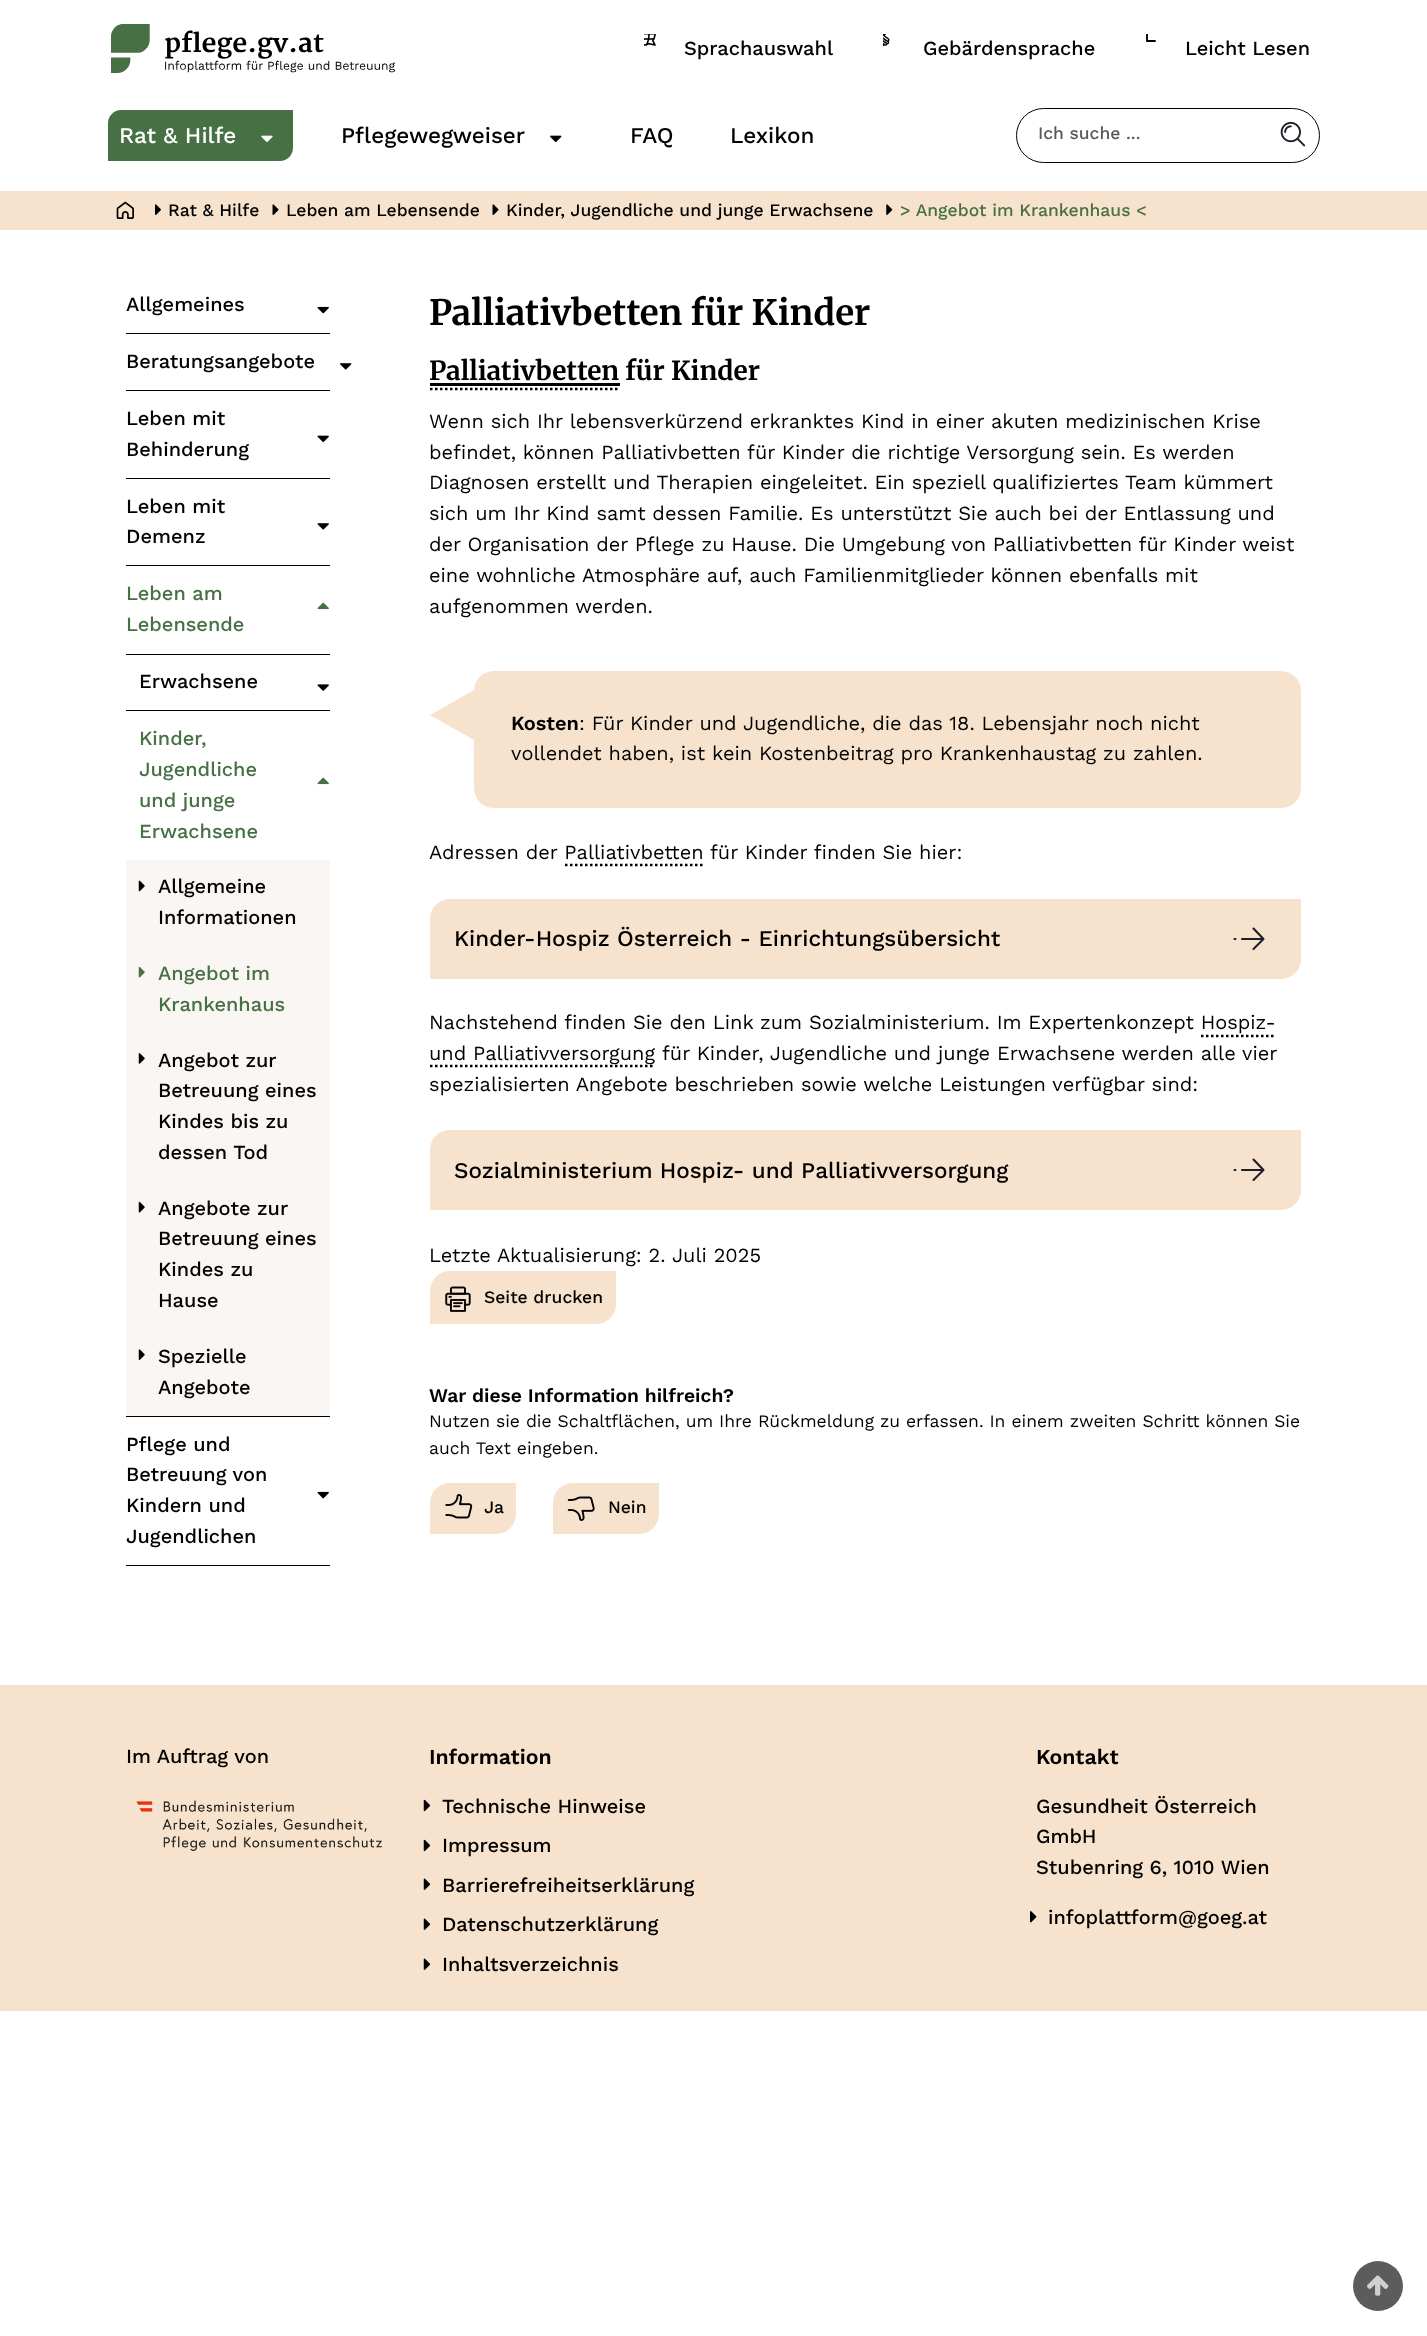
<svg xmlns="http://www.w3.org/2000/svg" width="1427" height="2336">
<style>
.a{font:500 20px Work Sans;fill:#000}
.b{font:500 22.5px Work Sans;fill:#fff}
.c{font:500 22.5px Work Sans;fill:#000}
.d{font:500 17.5px Work Sans;fill:#595959}
.e{font:500 17.5px Work Sans;fill:#000}
.f{font:500 17.5px Work Sans;fill:#477044}
.g{font:500 20px Work Sans;fill:#477044}
.h{font:300 35px Merriweather;fill:#000}
.i{font:300 26.25px Merriweather;fill:#000}
.j{font:20px Work Sans;fill:#000}
.k{font:600 20px Work Sans;fill:#000}
.l{font:600 19.25px Work Sans;fill:#000}
.m{font:17.5px Work Sans;fill:#000}
.n{font:600 21.25px Work Sans;fill:#000}
</style>
<defs>
<clipPath id="clip1"><path d="M1145 34h15v15H1145z"/></clipPath>
</defs>
<rect width="100%" height="100%" fill="#fff"/>
<image href="1.png" x="111" y="24" width="284" height="49"/>
<image href="2.png" x="644" y="34" width="12" height="12"/>
<image href="3.png" x="883" y="34" width="7" height="13"/>
<g clip-path="url(#clip1)">
<path fill="none" stroke="#000" stroke-width="1.9" stroke-linecap="round" stroke-linejoin="round" d="M1135 27.5v13.5h8m4-13.5v13.5h8"/>
</g>
<path fill="#477044" d="M121 110h172v38c0 7-6 13-13 13h-172v-38c0-7 6-13 13-13z"/>
<image href="4.png" x="261" y="135" width="12" height="7"/>
<image href="5.png" x="550" y="135" width="12" height="8"/>
<rect fill="none" stroke="#000" x="1016.5" y="108.5" width="303" height="54" rx="27"/>
<image href="6.png" x="1280" y="121" width="26" height="26"/>
<path fill="#f7e3cd" d="M0 191h1427v39H0z"/>
<image href="7.png" x="116" y="201" width="18" height="18"/>
<image href="8.png" x="155" y="204" width="6" height="11"/>
<image href="9.png" x="272" y="204" width="7" height="11"/>
<image href="9.png" x="492" y="204" width="7" height="11"/>
<image href="10.png" x="886" y="204" width="7" height="11"/>
<path fill="#000" d="M126 333h204v1H126z"/>
<image href="11.png" x="317" y="306" width="12" height="8"/>
<path fill="#000" d="M126 390h204v1H126z"/>
<image href="12.png" x="340" y="363" width="12" height="7"/>
<path fill="#000" d="M126 478h204v1H126z"/>
<image href="13.png" x="317" y="435" width="12" height="8"/>
<path fill="#000" d="M126 565h204v1H126z"/>
<image href="14.png" x="317" y="523" width="12" height="7"/>
<path fill="#000" d="M126 1416h204v1H126z"/>
<image href="15.png" x="317" y="602" width="12" height="8"/>
<path fill="#000" d="M126 654h204v1H126z"/>
<path fill="#000" d="M126 710h204v1H126z"/>
<image href="16.png" x="317" y="684" width="12" height="7"/>
<image href="15.png" x="317" y="777" width="12" height="8"/>
<path fill="#f9f6f4" d="M126 860h204v556H126z"/>
<image href="17.png" x="138" y="880" width="7" height="12"/>
<image href="18.png" x="138" y="966" width="7" height="12"/>
<image href="19.png" x="138" y="1053" width="7" height="11"/>
<image href="20.png" x="138" y="1201" width="7" height="12"/>
<image href="21.png" x="138" y="1349" width="7" height="11"/>
<path fill="#000" d="M126 1565h204v1H126z"/>
<image href="11.png" x="317" y="1491" width="12" height="8"/>
<path fill="none" stroke="#000" stroke-width="2.5" stroke-dasharray="2.5 2.5" d="M430 389h190"/>
<path fill="#000" d="M430 383h190v3H430z"/>
<path fill="#f7e3cd" d="M474 690v50l-44-25z"/>
<rect fill="#f7e3cd" x="474" y="671" width="827" height="137" rx="20"/>
<path fill="none" stroke="#000" stroke-width="2.5" stroke-dasharray="2.5 2.5" d="M565 865h139"/>
<path fill="#f7e3cd" d="M450 899h851v60c0 11-9 20-20 20h-851v-60c0-11 9-20 20-20z"/>
<path fill="none" stroke="#1e1e28" stroke-width="2.1" stroke-linecap="round" stroke-linejoin="round" d="M1253.5 949l10-10l-10-10.5m9 10.5h-20.5m-6.5 0h-1"/>
<path fill="none" stroke="#000" stroke-width="2.5" stroke-dasharray="2.5 2.5" d="M1201 1036h75"/>
<path fill="none" stroke="#000" stroke-width="2.5" stroke-dasharray="2.5 2.5" d="M430 1066h225"/>
<path fill="#f7e3cd" d="M450 1130h851v60c0 11-9 20-20 20h-851v-60c0-11 9-20 20-20z"/>
<path fill="none" stroke="#1e1e28" stroke-width="2.1" stroke-linecap="round" stroke-linejoin="round" d="M1253.5 1180l10-10l-10-10.5m9 10.5h-20.5m-6.5 0h-1"/>
<path fill="#f7e3cd" d="M450 1271h166v33c0 11-9 20-20 20h-166v-33c0-11 9-20 20-20z"/>
<image href="22.png" x="445" y="1286" width="26" height="26"/>
<path fill="#f7e3cd" d="M450 1483h66v31c0 11-9 20-20 20h-66v-31c0-11 9-20 20-20z"/>
<image href="23.png" x="445" y="1494" width="28" height="25"/>
<path fill="#f7e3cd" d="M573 1483h86v31c0 11-9 20-20 20h-86v-31c0-11 9-20 20-20z"/>
<image href="24.png" x="567" y="1496" width="28" height="25"/>
<path fill="#f7e3cd" d="M0 1685h1427v326H0z"/>
<image href="25.png" x="136" y="1800" width="246" height="51"/>
<image href="26.png" x="423" y="1799" width="8" height="13"/>
<image href="26.png" x="423" y="1839" width="8" height="13"/>
<image href="27.png" x="423" y="1878" width="8" height="12"/>
<image href="27.png" x="423" y="1918" width="8" height="12"/>
<image href="27.png" x="423" y="1958" width="8" height="12"/>
<image href="28.png" x="1030" y="1911" width="7" height="12"/>
<circle fill="#5c5c5c" cx="1378" cy="2286" r="25"/>
<image href="29.png" x="1367" y="2275" width="22" height="21"/>
<text class="a" x="684" y="55">Sprachauswahl</text>
<text class="a" x="923" y="55">Gebärdensprache</text>
<text class="a" x="1185" y="55">Leicht Lesen</text>
<text class="b" x="119" y="143">Rat &amp; Hilfe</text>
<text class="c" x="341" y="143">Pflegewegweiser</text>
<text class="c" x="630" y="143">FAQ</text>
<text class="c" x="730" y="143">Lexikon</text>
<text class="d" x="1038" y="139">Ich suche ...</text>
<text class="e" x="168" y="216">Rat &amp; Hilfe</text>
<text class="e" x="286" y="216">Leben am Lebensende</text>
<text class="e" x="506" y="216">Kinder, Jugendliche und junge Erwachsene</text>
<text class="f" x="900" y="216">&gt; Angebot im Krankenhaus &lt;</text>
<text class="a" x="126" y="311">Allgemeines</text>
<text class="a" x="126" y="368">Beratungsangebote</text>
<text class="a" x="126" y="425">Leben mit</text>
<text class="a" x="126" y="456">Behinderung</text>
<text class="a" x="126" y="513">Leben mit</text>
<text class="a" x="126" y="543">Demenz</text>
<text class="g" x="126" y="600">Leben am</text>
<text class="g" x="126" y="631">Lebensende</text>
<text class="a" x="139" y="688">Erwachsene</text>
<text class="g" x="139" y="745">Kinder,</text>
<text class="g" x="139" y="776">Jugendliche</text>
<text class="g" x="139" y="807">und junge</text>
<text class="g" x="139" y="838">Erwachsene</text>
<text class="a" x="158" y="893">Allgemeine</text>
<text class="a" x="158" y="924">Informationen</text>
<text class="g" x="158" y="980">Angebot im</text>
<text class="g" x="158" y="1011">Krankenhaus</text>
<text class="a" x="158" y="1067">Angebot zur</text>
<text class="a" x="158" y="1097">Betreuung eines</text>
<text class="a" x="158" y="1128">Kindes bis zu</text>
<text class="a" x="158" y="1159">dessen Tod</text>
<text class="a" x="158" y="1215">Angebote zur</text>
<text class="a" x="158" y="1245">Betreuung eines</text>
<text class="a" x="158" y="1276">Kindes zu</text>
<text class="a" x="158" y="1307">Hause</text>
<text class="a" x="158" y="1363">Spezielle</text>
<text class="a" x="158" y="1394">Angebote</text>
<text class="a" x="126" y="1451">Pflege und</text>
<text class="a" x="126" y="1481">Betreuung von</text>
<text class="a" x="126" y="1512">Kindern und</text>
<text class="a" x="126" y="1543">Jugendlichen</text>
<text class="h" x="429" y="325">Palliativbetten für Kinder</text>
<text class="i" x="429" y="380">Palliativbetten für Kinder</text>
<text class="j" x="429" y="428">Wenn sich Ihr lebensverkürzend erkranktes Kind in einer akuten medizinischen Krise</text>
<text class="j" x="429" y="459">befindet, können Palliativbetten für Kinder die richtige Versorgung sein. Es werden</text>
<text class="j" x="429" y="489">Diagnosen erstellt und Therapien eingeleitet. Ein speziell qualifiziertes Team kümmert</text>
<text class="j" x="429" y="520">sich um Ihr Kind samt dessen Familie. Es unterstützt Sie auch bei der Entlassung und</text>
<text class="j" x="429" y="551">der Organisation der Pflege zu Hause. Die Umgebung von Palliativbetten für Kinder weist</text>
<text class="j" x="429" y="582">eine wohnliche Atmosphäre auf, auch Familienmitglieder können ebenfalls mit</text>
<text class="j" x="429" y="613">aufgenommen werden.</text>
<text class="k" x="511" y="730">Kosten</text>
<text class="j" x="579" y="730">: Für Kinder und Jugendliche, die das 18. Lebensjahr noch nicht</text>
<text class="j" x="511" y="760">vollendet haben, ist kein Kostenbeitrag pro Krankenhaustag zu zahlen.</text>
<text class="j" x="429" y="859">Adressen der Palliativbetten</text>
<text class="j" x="710" y="859">für Kinder finden Sie hier:</text>
<text class="c" x="454" y="946">Kinder-Hospiz Österreich - Einrichtungsübersicht</text>
<text class="j" x="429" y="1029">Nachstehend finden Sie den Link zum Sozialministerium. Im Expertenkonzept Hospiz-</text>
<text class="j" x="429" y="1060">und Palliativversorgung</text>
<text class="j" x="662" y="1060">für Kinder, Jugendliche und junge Erwachsene werden alle vier</text>
<text class="j" x="429" y="1091">spezialisierten Angebote beschrieben sowie welche Leistungen verfügbar sind:</text>
<text class="c" x="454" y="1178">Sozialministerium Hospiz- und Palliativversorgung</text>
<text class="j" x="429" y="1262">Letzte Aktualisierung: 2. Juli 2025</text>
<text class="e" x="484" y="1303">Seite drucken</text>
<text class="l" x="429" y="1402">War diese Information hilfreich?</text>
<text class="m" x="429" y="1427">Nutzen sie die Schaltflächen, um Ihre Rückmeldung zu erfassen. In einem zweiten Schritt können Sie</text>
<text class="m" x="429" y="1454">auch Text eingeben.</text>
<text class="e" x="484" y="1513">Ja</text>
<text class="e" x="608" y="1513">Nein</text>
<text class="a" x="126" y="1763">Im Auftrag von</text>
<text class="n" x="429" y="1764">Information</text>
<text class="a" x="442" y="1813">Technische Hinweise</text>
<text class="a" x="442" y="1852">Impressum</text>
<text class="a" x="442" y="1892">Barrierefreiheitserklärung</text>
<text class="a" x="442" y="1931">Datenschutzerklärung</text>
<text class="a" x="442" y="1971">Inhaltsverzeichnis</text>
<text class="n" x="1036" y="1764">Kontakt</text>
<text class="a" x="1036" y="1813">Gesundheit Österreich</text>
<text class="a" x="1036" y="1843">GmbH</text>
<text class="a" x="1036" y="1874">Stubenring 6, 1010 Wien</text>
<text class="a" x="1048" y="1924">infoplattform@goeg.at</text>
</svg>
